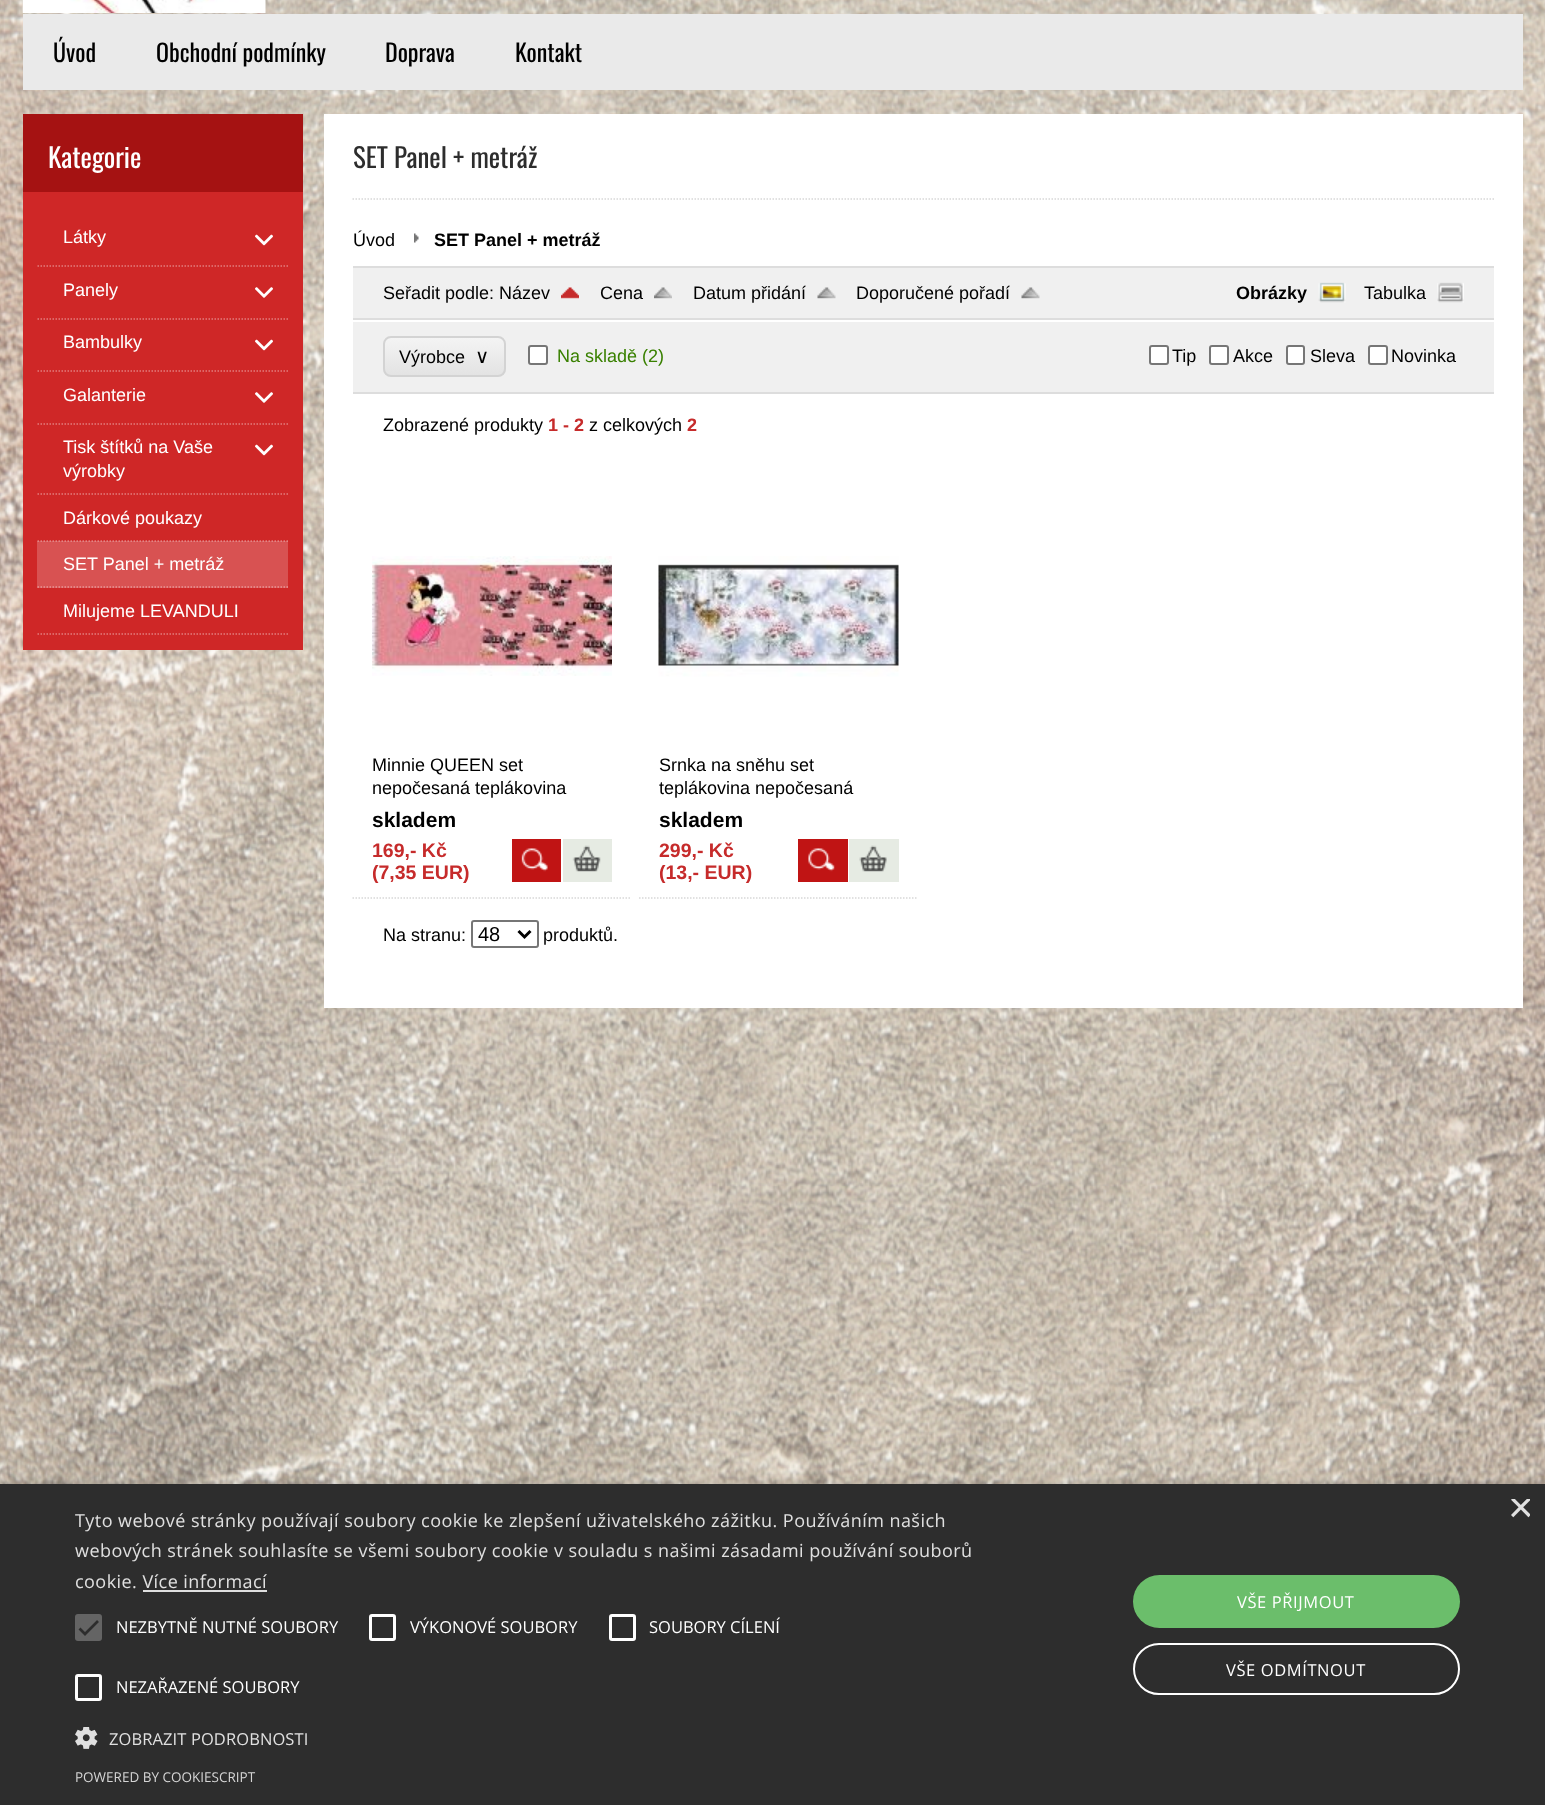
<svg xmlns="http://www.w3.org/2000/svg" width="1545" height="1805">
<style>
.a{font:24px Oswald;fill:#000}
.b{font:27px Oswald;fill:#fff}
.c{font:18px Liberation Sans;fill:#fff}
.d{font:27px Oswald;fill:#2d2d2d}
.e{font:18px Liberation Sans;fill:#000}
.f{font:bold 18px Liberation Sans;fill:#000}
.g{font:19.5px DejaVu Sans;fill:#000}
.h{font:18px Liberation Sans;fill:#398000}
.i{font:bold 18px Liberation Sans;fill:#c62b2b}
.j{font:bold 21px Liberation Sans;fill:#000}
.k{font:bold 19.5px Liberation Sans;fill:#c62b2b}
.l{font:20px Liberation Sans;fill:#000}
.m{font:44px Liberation Sans;fill:#e0e0e0}
.n{font:18px Open Sans;letter-spacing:0.45px;fill:#e0e0e0}
.o{font:16.5px Open Sans;fill:#fff}
.p{font:16.5px Open Sans;letter-spacing:0.1px;fill:#e0e0e0}
.q{font:16.5px Open Sans;letter-spacing:0.6px;fill:#fff}
.r{font:13.5px Open Sans;fill:#d5d5d5}
</style>
<defs>
<clipPath id="clip1"><rect x="383" y="336" width="123" height="41" rx="8"/></clipPath>
<linearGradient id="g1" gradientUnits="userSpaceOnUse" x1="444" y1="338" x2="444" y2="375"><stop offset="0" stop-color="#f4f4f4"/><stop offset="1" stop-color="#e3e3e3"/></linearGradient>
<clipPath id="clip2"><path d="M1508 1499h22v22H1508z"/></clipPath>
</defs>
<rect width="100%" height="100%" fill="#fff"/>
<image href="1.png" x="0" y="0" width="1545" height="1484"/>
<image href="2.png" x="22" y="0" width="244" height="13"/>
<path fill="#eaeaea" d="M23 14h1500v76H23z"/>
<path fill="#cf2727" d="M23 192h280v458H23z"/>
<path fill="#a51212" d="M23 114h280v78H23z"/>
<path fill="none" stroke="#e27d7d" stroke-width="1.5" stroke-dasharray="1.5 1.5" d="M37.5 266h250.5"/>
<image href="3.png" x="255" y="234" width="18" height="12"/>
<path fill="none" stroke="#e27d7d" stroke-width="1.5" stroke-dasharray="1.5 1.5" d="M37.5 319h250.5"/>
<image href="4.png" x="255" y="287" width="18" height="11"/>
<path fill="none" stroke="#e27d7d" stroke-width="1.5" stroke-dasharray="1.5 1.5" d="M37.5 371h250.5"/>
<image href="3.png" x="255" y="339" width="18" height="12"/>
<path fill="none" stroke="#e27d7d" stroke-width="1.5" stroke-dasharray="1.5 1.5" d="M37.5 424h250.5"/>
<image href="4.png" x="255" y="392" width="18" height="11"/>
<path fill="none" stroke="#e27d7d" stroke-width="1.5" stroke-dasharray="1.5 1.5" d="M37.5 494h250.5"/>
<image href="3.png" x="255" y="444" width="18" height="12"/>
<path fill="none" stroke="#e27d7d" stroke-width="1.5" stroke-dasharray="1.5 1.5" d="M37.5 541h250.5"/>
<path fill="#ffffff33" d="M37 541h251v47H37z"/>
<path fill="none" stroke="#e89797" stroke-width="1.5" stroke-dasharray="1.5 1.5" d="M37.5 587h250.5"/>
<path fill="none" stroke="#e27d7d" stroke-width="1.5" stroke-dasharray="1.5 1.5" d="M37.5 634h250.5"/>
<path fill="#fff" d="M324 114h1199v894H324z"/>
<path fill="none" stroke="#d8d8d8" stroke-width="1.5" stroke-dasharray="1.5 1.5" d="M352.5 199h1141.5"/>
<image href="5.png" x="414" y="233" width="5" height="10"/>
<path fill="#f0f0f0" d="M353 268h1141v124H353z"/>
<path fill="#ddd" d="M353 266h1141v2H353z"/>
<path fill="#ddd" d="M353 392h1141v2H353z"/>
<path fill="#ddd" d="M353 318h1141v2H353z"/>
<image href="6.png" x="561" y="287" width="18" height="12"/>
<image href="7.png" x="654" y="287" width="18" height="12"/>
<image href="8.png" x="817" y="287" width="19" height="12"/>
<image href="8.png" x="1021" y="287" width="19" height="12"/>
<image href="9.png" x="1318" y="282" width="28" height="21"/>
<image href="10.png" x="1437" y="282" width="27" height="21"/>
<path fill="#fff" d="M353 320h1141v2H353z"/>
<g clip-path="url(#clip1)">
<path fill="url(#g1)" d="M383 338h123v37H383z"/>
</g>
<rect fill="none" stroke="#d3d3d3" stroke-width="2" x="384" y="337" width="121" height="39" rx="7"/>
<rect fill="#fff" stroke="#767676" stroke-width="2" x="529" y="346" width="18" height="18" rx="2"/>
<rect fill="#fff" stroke="#767676" stroke-width="2" x="1150" y="346" width="18" height="18" rx="2"/>
<rect fill="#fff" stroke="#767676" stroke-width="2" x="1210" y="346" width="18" height="18" rx="2"/>
<rect fill="#fff" stroke="#767676" stroke-width="2" x="1287" y="346" width="17" height="18" rx="2"/>
<rect fill="#fff" stroke="#767676" stroke-width="2" x="1369" y="346" width="18" height="18" rx="2"/>
<path fill="none" stroke="#d8d8d8" stroke-width="1.5" stroke-dasharray="1.5 1.5" d="M352.5 898h279"/>
<image href="11.png" x="372" y="556" width="240" height="120"/>
<path fill="#c01414" d="M512 839h49v43H512z"/>
<image href="12.png" x="521" y="848" width="27" height="24"/>
<path fill="#e6ebe3" d="M563 839h49v43H563z"/>
<image href="13.png" x="572" y="845" width="29" height="27"/>
<path fill="none" stroke="#d8d8d8" stroke-width="1.5" stroke-dasharray="1.5 1.5" d="M639 898h279"/>
<image href="14.png" x="658" y="556" width="241" height="121"/>
<path fill="#c01414" d="M798 839h50v43H798z"/>
<image href="15.png" x="808" y="848" width="27" height="24"/>
<path fill="#e6ebe3" d="M849 839h50v43H849z"/>
<image href="16.png" x="859" y="845" width="28" height="27"/>
<rect fill="none" stroke="#767676" stroke-width="2" x="472" y="921" width="66" height="26" rx="2"/>
<path fill="none" stroke="#000" stroke-width="3" d="M518.5 931l6 6l6-6"/>
<path fill="#00000059" filter="blur(6px)" d="M2 1487h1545v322H2z"/>
<path fill="#2d2d2d" d="M0 1484h1545v321H0z"/>
<path fill="#e0e0e0" d="M143 1590h124v2H143z"/>
<rect fill="#646464" x="75" y="1614" width="27" height="27" rx="3"/>
<path fill="none" stroke="#2d2d2d" stroke-width="2.7" d="M79.5 1628.5l5.5 5.5l13-13"/>
<rect fill="none" stroke="#fff" stroke-width="3" x="370.5" y="1615.5" width="24" height="24" rx="1.5"/>
<rect fill="none" stroke="#fff" stroke-width="3" x="610.5" y="1615.5" width="24" height="24" rx="1.5"/>
<rect fill="none" stroke="#fff" stroke-width="3" x="76.5" y="1675.5" width="24" height="24" rx="1.5"/>
<image href="17.png" x="75" y="1727" width="23" height="22"/>
<rect fill="#6bbe6b" x="1133" y="1575" width="327" height="53" rx="26.5"/>
<rect fill="none" stroke="#fff" stroke-width="2" x="1134" y="1644" width="325" height="50" rx="25"/>
<text class="a" x="53" y="62">Úvod</text>
<text class="a" x="156" y="62">Obchodní podmínky</text>
<text class="a" x="385" y="62">Doprava</text>
<text class="a" x="515" y="62">Kontakt</text>
<text class="b" x="48" y="168">Kategorie</text>
<text class="c" x="63" y="243">Látky</text>
<text class="c" x="63" y="296">Panely</text>
<text class="c" x="63" y="348">Bambulky</text>
<text class="c" x="63" y="401">Galanterie</text>
<text class="c" x="63" y="453">Tisk štítků na Vaše</text>
<text class="c" x="63" y="477">výrobky</text>
<text class="c" x="63" y="524">Dárkové poukazy</text>
<text class="c" x="63" y="570">SET Panel + metráž</text>
<text class="c" x="63" y="617">Milujeme LEVANDULI</text>
<text class="d" x="353" y="168">SET Panel + metráž</text>
<text class="e" x="353" y="246">Úvod</text>
<text class="f" x="434" y="246">SET Panel + metráž</text>
<text class="e" x="383" y="299">Seřadit podle: Název</text>
<text class="e" x="600" y="299">Cena</text>
<text class="e" x="693" y="299">Datum přidání</text>
<text class="e" x="856" y="299">Doporučené pořadí</text>
<text class="f" x="1236" y="299">Obrázky</text>
<text class="e" x="1364" y="299">Tabulka</text>
<text class="e" x="399" y="363">Výrobce</text>
<text class="g" x="475" y="363">∨</text>
<text class="h" x="557" y="362">Na skladě (2)</text>
<text class="e" x="1172" y="362">Tip</text>
<text class="e" x="1233" y="362">Akce</text>
<text class="e" x="1310" y="362">Sleva</text>
<text class="e" x="1391" y="362">Novinka</text>
<text class="e" x="383" y="431">Zobrazené produkty</text>
<text class="i" x="548" y="431">1 - 2</text>
<text class="e" x="589" y="431">z celkových</text>
<text class="i" x="687" y="431">2</text>
<text class="e" x="372" y="771">Minnie QUEEN set</text>
<text class="e" x="372" y="794">nepočesaná teplákovina</text>
<text class="j" x="372" y="827">skladem</text>
<text class="k" x="372" y="857">169,- Kč</text>
<text class="k" x="372" y="879">(7,35 EUR)</text>
<text class="e" x="659" y="771">Srnka na sněhu set</text>
<text class="e" x="659" y="794">teplákovina nepočesaná</text>
<text class="j" x="659" y="827">skladem</text>
<text class="k" x="659" y="857">299,- Kč</text>
<text class="k" x="659" y="879">(13,- EUR)</text>
<text class="e" x="383" y="941">Na stranu:</text>
<text class="l" x="478" y="941">48</text>
<text class="e" x="543" y="941">produktů.</text>
<g clip-path="url(#clip2)">
<text class="m" x="1508" y="1522">×</text>
</g>
<text class="n" x="75" y="1527">Tyto webové stránky používají soubory cookie ke zlepšení uživatelského zážitku. Používáním našich</text>
<text class="n" x="75" y="1557">webových stránek souhlasíte se všemi soubory cookie v souladu s našimi zásadami používání souborů</text>
<text class="n" x="75" y="1588">cookie. Více informací</text>
<text class="o" x="116" y="1633">NEZBYTNĚ NUTNÉ SOUBORY</text>
<text class="o" x="410" y="1633">VÝKONOVÉ SOUBORY</text>
<text class="o" x="649" y="1633">SOUBORY CÍLENÍ</text>
<text class="o" x="116" y="1693">NEZAŘAZENÉ SOUBORY</text>
<text class="p" x="109" y="1745">ZOBRAZIT PODROBNOSTI</text>
<text class="q" x="1237" y="1608">VŠE PŘIJMOUT</text>
<text class="q" x="1226" y="1676">VŠE ODMÍTNOUT</text>
<text class="r" x="75" y="1782">POWERED BY COOKIESCRIPT</text>
</svg>
